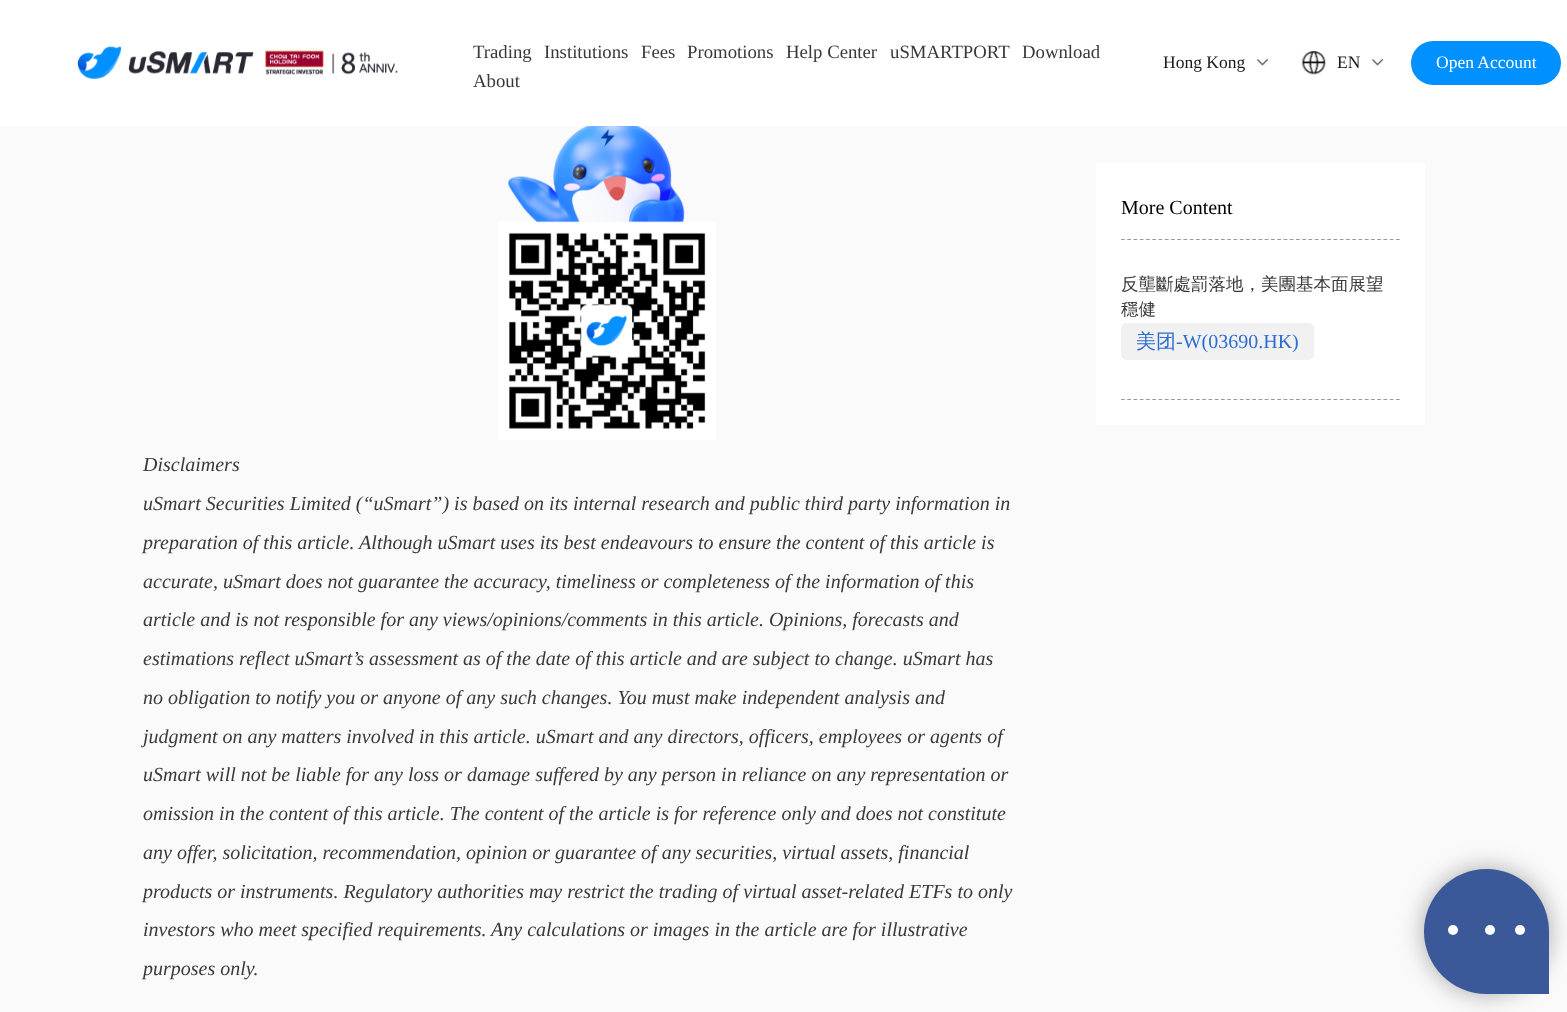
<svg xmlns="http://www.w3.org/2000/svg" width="1567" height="1012">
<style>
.a{font:18.75px Liberation Serif;fill:#393939}
.b{font:17.5px Liberation Serif;fill:#191919}
.c{font:17.5px Liberation Serif;fill:#fff}
.d{font:20px Liberation Serif;fill:#000}
.e{font:500 17.5px WenQuanYi Zen Hei;fill:#393939}
.f{font:500 20px WenQuanYi Zen Hei;fill:#2d6dd2}
.g{font:20px Liberation Serif;fill:#2d6dd2}
.h{font:italic 20px Liberation Serif;fill:#393939}
</style>
<rect width="100%" height="100%" fill="#fafafa"/>
<path fill="#fff" d="M0 0h1567v126H0z"/>
<image href="1.png" x="77" y="46" width="321" height="33"/>
<image href="2.png" x="1256" y="58" width="13" height="8"/>
<image href="3.png" x="1301" y="51" width="25" height="24"/>
<image href="2.png" x="1371" y="58" width="13" height="8"/>
<rect fill="#0090ff" x="1411" y="41" width="150" height="44" rx="22"/>
<path fill="#fff" d="M1096 163h329v262H1096z"/>
<path fill="none" stroke="#9a9a9a" stroke-width="1.2" stroke-dasharray="3.75 2.5" d="M1121 239.5h279"/>
<path fill="none" stroke="#9a9a9a" stroke-width="1.2" stroke-dasharray="3.75 2.5" d="M1121 399.5h279"/>
<rect fill="#f1f1f1" x="1121" y="323" width="193" height="37" rx="5"/>
<image href="4.png" x="498" y="126" width="218" height="314"/>
<rect fill="#777777a3" filter="blur(12.5px)" x="1424" y="869" width="125" height="125" rx="62.5"/>
<path fill="#3b5998" d="M1486.5 869c34.5 0 62.5 28 62.5 62.5v62.5h-62.5c-34.5 0-62.5-28-62.5-62.5c0-34.5 28-62.5 62.5-62.5z"/>
<circle fill="#fff" cx="1453" cy="930" r="5"/>
<circle fill="#fff" cx="1490" cy="930" r="5"/>
<circle fill="#fff" cx="1520" cy="930" r="5"/>
<text class="a" x="473" y="58">Trading</text>
<text class="a" x="544" y="58">Institutions</text>
<text class="a" x="641" y="58">Fees</text>
<text class="a" x="687" y="58">Promotions</text>
<text class="a" x="786" y="58">Help Center</text>
<text class="a" x="890" y="58">uSMARTPORT</text>
<text class="a" x="1022" y="58">Download</text>
<text class="a" x="473" y="87">About</text>
<text class="b" x="1163" y="68">Hong Kong</text>
<text class="b" x="1337" y="68">EN</text>
<text class="c" x="1436" y="68">Open Account</text>
<text class="d" x="1121" y="214">More Content</text>
<text class="e" x="1121" y="290">反壟斷處罰落地，美團基本面展望</text>
<text class="e" x="1121" y="315">穩健</text>
<text class="f" x="1136" y="348">美团</text>
<text class="g" x="1176" y="348">-W(03690.HK)</text>
<text class="h" x="143" y="471">Disclaimers</text>
<text class="h" x="143" y="510">uSmart Securities Limited (“uSmart”) is based on its internal research and public third party information in</text>
<text class="h" x="143" y="549">preparation of this article. Although uSmart uses its best endeavours to ensure the content of this article is</text>
<text class="h" x="143" y="588">accurate, uSmart does not guarantee the accuracy, timeliness or completeness of the information of this</text>
<text class="h" x="143" y="626">article and is not responsible for any views/opinions/comments in this article. Opinions, forecasts and</text>
<text class="h" x="143" y="665">estimations reflect uSmart’s assessment as of the date of this article and are subject to change. uSmart has</text>
<text class="h" x="143" y="704">no obligation to notify you or anyone of any such changes. You must make independent analysis and</text>
<text class="h" x="143" y="743">judgment on any matters involved in this article. uSmart and any directors, officers, employees or agents of</text>
<text class="h" x="143" y="781">uSmart will not be liable for any loss or damage suffered by any person in reliance on any representation or</text>
<text class="h" x="143" y="820">omission in the content of this article. The content of the article is for reference only and does not constitute</text>
<text class="h" x="143" y="859">any offer, solicitation, recommendation, opinion or guarantee of any securities, virtual assets, financial</text>
<text class="h" x="143" y="898">products or instruments. Regulatory authorities may restrict the trading of virtual asset-related ETFs to only</text>
<text class="h" x="143" y="936">investors who meet specified requirements. Any calculations or images in the article are for illustrative</text>
<text class="h" x="143" y="975">purposes only.</text>
</svg>
